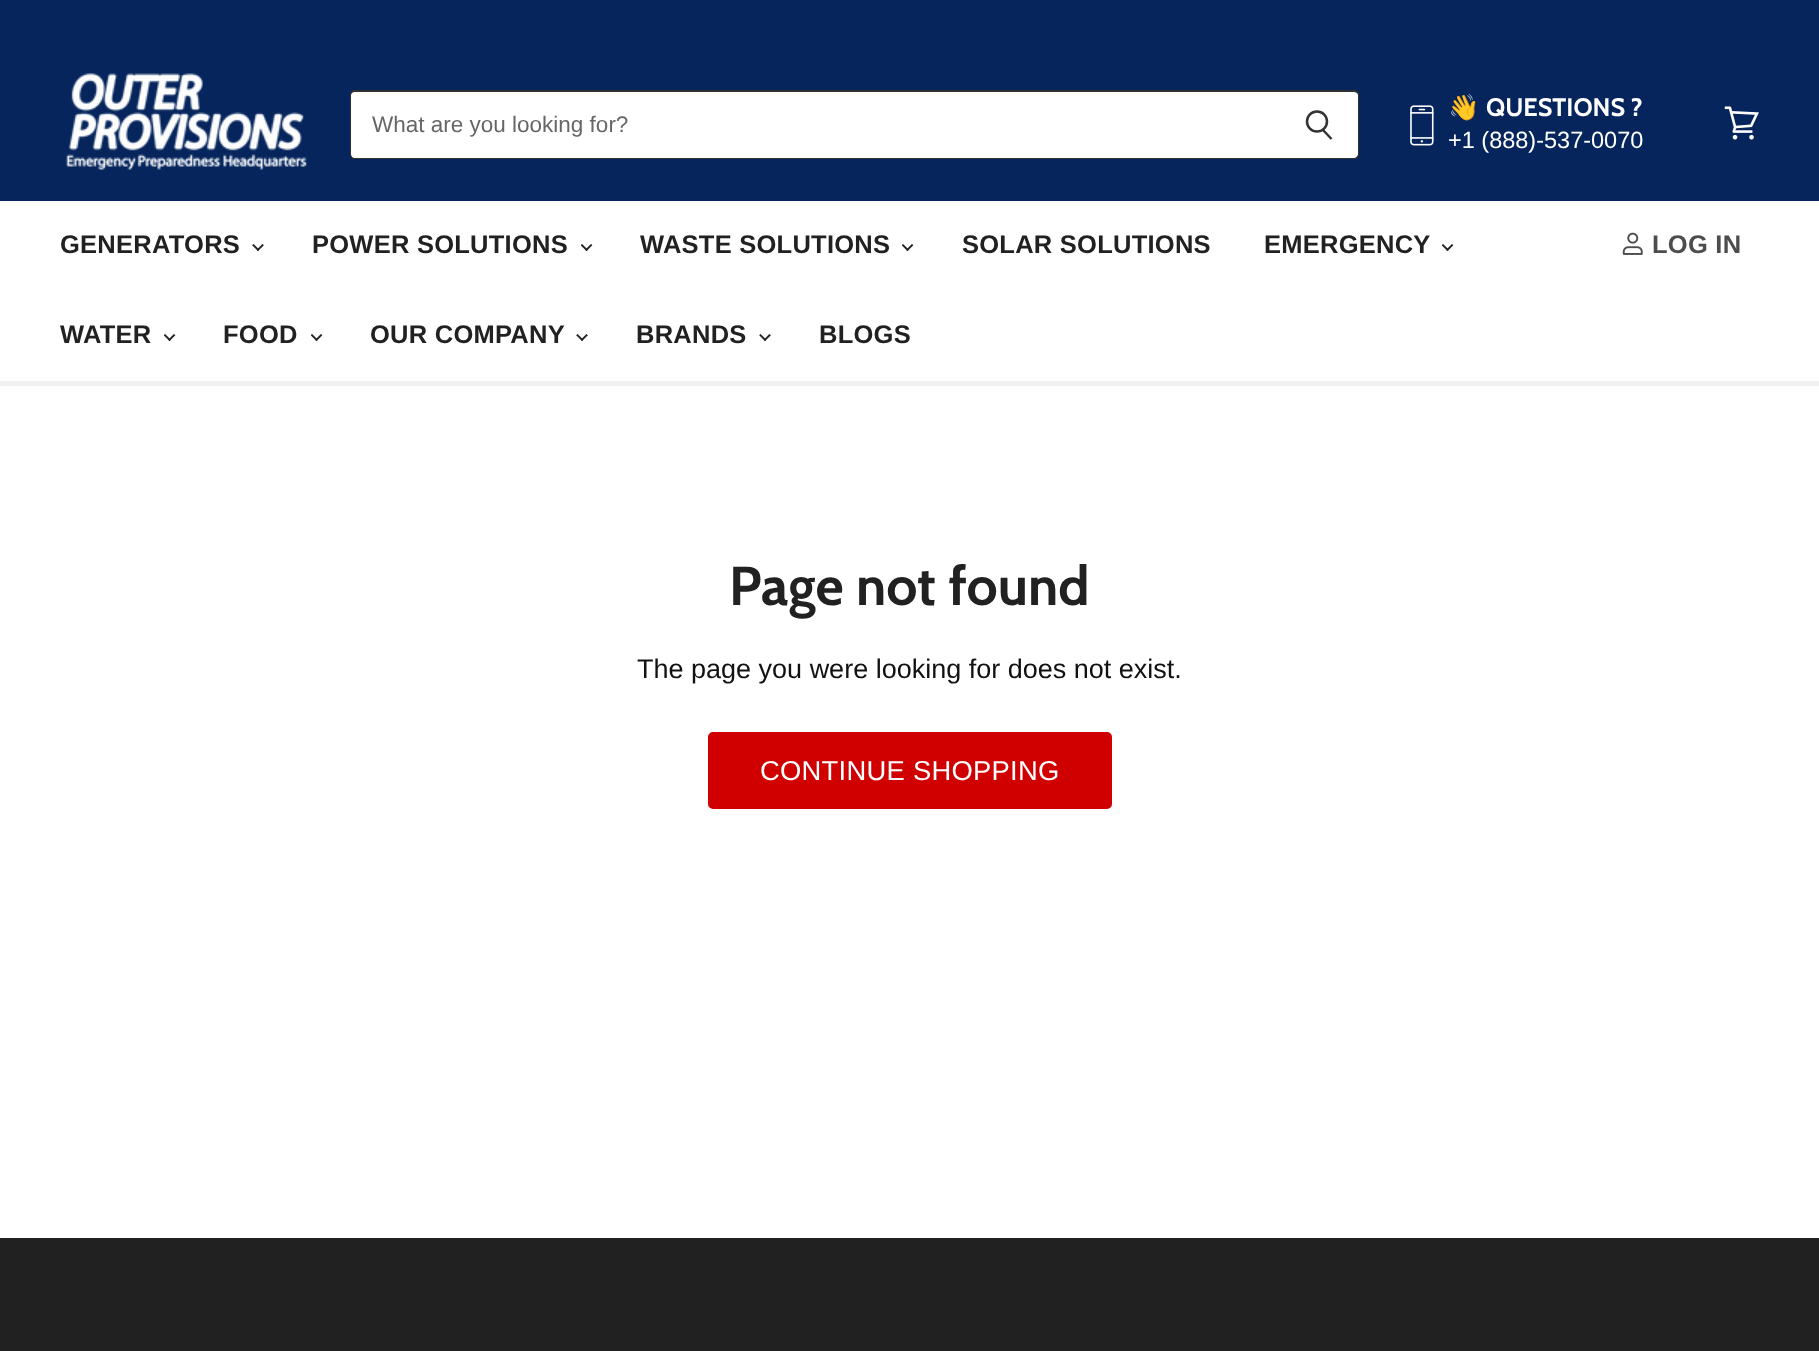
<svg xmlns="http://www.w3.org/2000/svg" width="1819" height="1351">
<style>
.a{font:22.5px Liberation Sans;fill:#666}
.b{font:bold 25.25px Noto Color Emoji;fill:#fff}
.c{font:bold 25.25px Cabin;fill:#fff}
.d{font:23.5px Liberation Sans;fill:#fff}
.e{font:bold 25.5px Liberation Sans;letter-spacing:0.25px;fill:#212121}
.f{font:bold 25.5px Liberation Sans;letter-spacing:0.25px;fill:#4d4d4d}
.g{font:bold 54.75px Cabin;fill:#212121}
.h{font:27px Liberation Sans;fill:#111}
.i{font:27.4px Liberation Sans;letter-spacing:0.25px;fill:#fff}
</style>
<rect width="100%" height="100%" fill="#fff"/>
<path fill="#05255c" d="M0 0h1819v201H0z"/>
<path fill="#f0f0f0" d="M0 381h1819v5H0z"/>
<image href="1.png" x="65" y="73" width="242" height="97"/>
<path fill="#fff" d="M354 92h926v66h-926c-1.5 0-3-1.5-3-3v-60c0-1.5 1.5-3 3-3z"/>
<path fill="#313131" fill-rule="evenodd" d="M354 90h926v69h-926c-2 0-4-2-4-5v-60c0-2 2-4 4-4zm0 2h926v66h-926c-2 0-3-2-3-4v-60c0-1 1-2 3-2z"/>
<path fill="#fff" d="M1280 92h75c1.5 0 3 1.5 3 3v60c0 1.5-1.5 3-3 3h-75z"/>
<path fill="#313131" fill-rule="evenodd" d="M1280 90h74c3 0 5 2 5 4v60c0 3-2 5-5 5h-74zm0 2h74c2 0 4 1 4 2v60c0 2-2 4-4 4h-74z"/>
<path fill="none" stroke="#333" stroke-width="2.5" d="M1331.5 139l-8.5-9"/>
<circle fill="none" stroke="#333" stroke-width="2.5" cx="1317" cy="121.5" r="10"/>
<image href="2.png" x="1410" y="105" width="24" height="41"/>
<image href="3.png" x="1724" y="106" width="35" height="34"/>
<image href="4.png" x="252" y="244" width="12" height="7"/>
<image href="5.png" x="581" y="244" width="12" height="7"/>
<image href="5.png" x="902" y="244" width="12" height="7"/>
<image href="5.png" x="1442" y="244" width="12" height="7"/>
<image href="5.png" x="164" y="334" width="12" height="7"/>
<image href="5.png" x="311" y="334" width="12" height="7"/>
<image href="4.png" x="576" y="334" width="12" height="7"/>
<image href="4.png" x="759" y="334" width="12" height="7"/>
<image href="6.png" x="1622" y="232" width="21" height="23"/>
<rect fill="#d10000" stroke="#d10000" stroke-width="2" x="709" y="733" width="402" height="75" rx="4"/>
<path fill="#212121" d="M0 1238h1819v113H0z"/>
<text class="a" x="372" y="132">What are you looking for?</text>
<text class="b" x="1448" y="116">👋</text>
<text class="c" x="1486" y="116">QUESTIONS ?</text>
<text class="d" x="1448" y="148">+1 (888)-537-0070</text>
<text class="e" x="60" y="253">GENERATORS</text>
<text class="e" x="312" y="253">POWER SOLUTIONS</text>
<text class="e" x="640" y="253">WASTE SOLUTIONS</text>
<text class="e" x="962" y="253">SOLAR SOLUTIONS</text>
<text class="e" x="1264" y="253">EMERGENCY</text>
<text class="e" x="60" y="343">WATER</text>
<text class="e" x="223" y="343">FOOD</text>
<text class="e" x="370" y="343">OUR COMPANY</text>
<text class="e" x="636" y="343">BRANDS</text>
<text class="e" x="819" y="343">BLOGS</text>
<text class="f" x="1652" y="253">LOG IN</text>
<text class="g" x="729" y="605">Page not found</text>
<text class="h" x="637" y="678">The page you were looking for does not exist.</text>
<text class="i" x="760" y="780">CONTINUE SHOPPING</text>
</svg>
